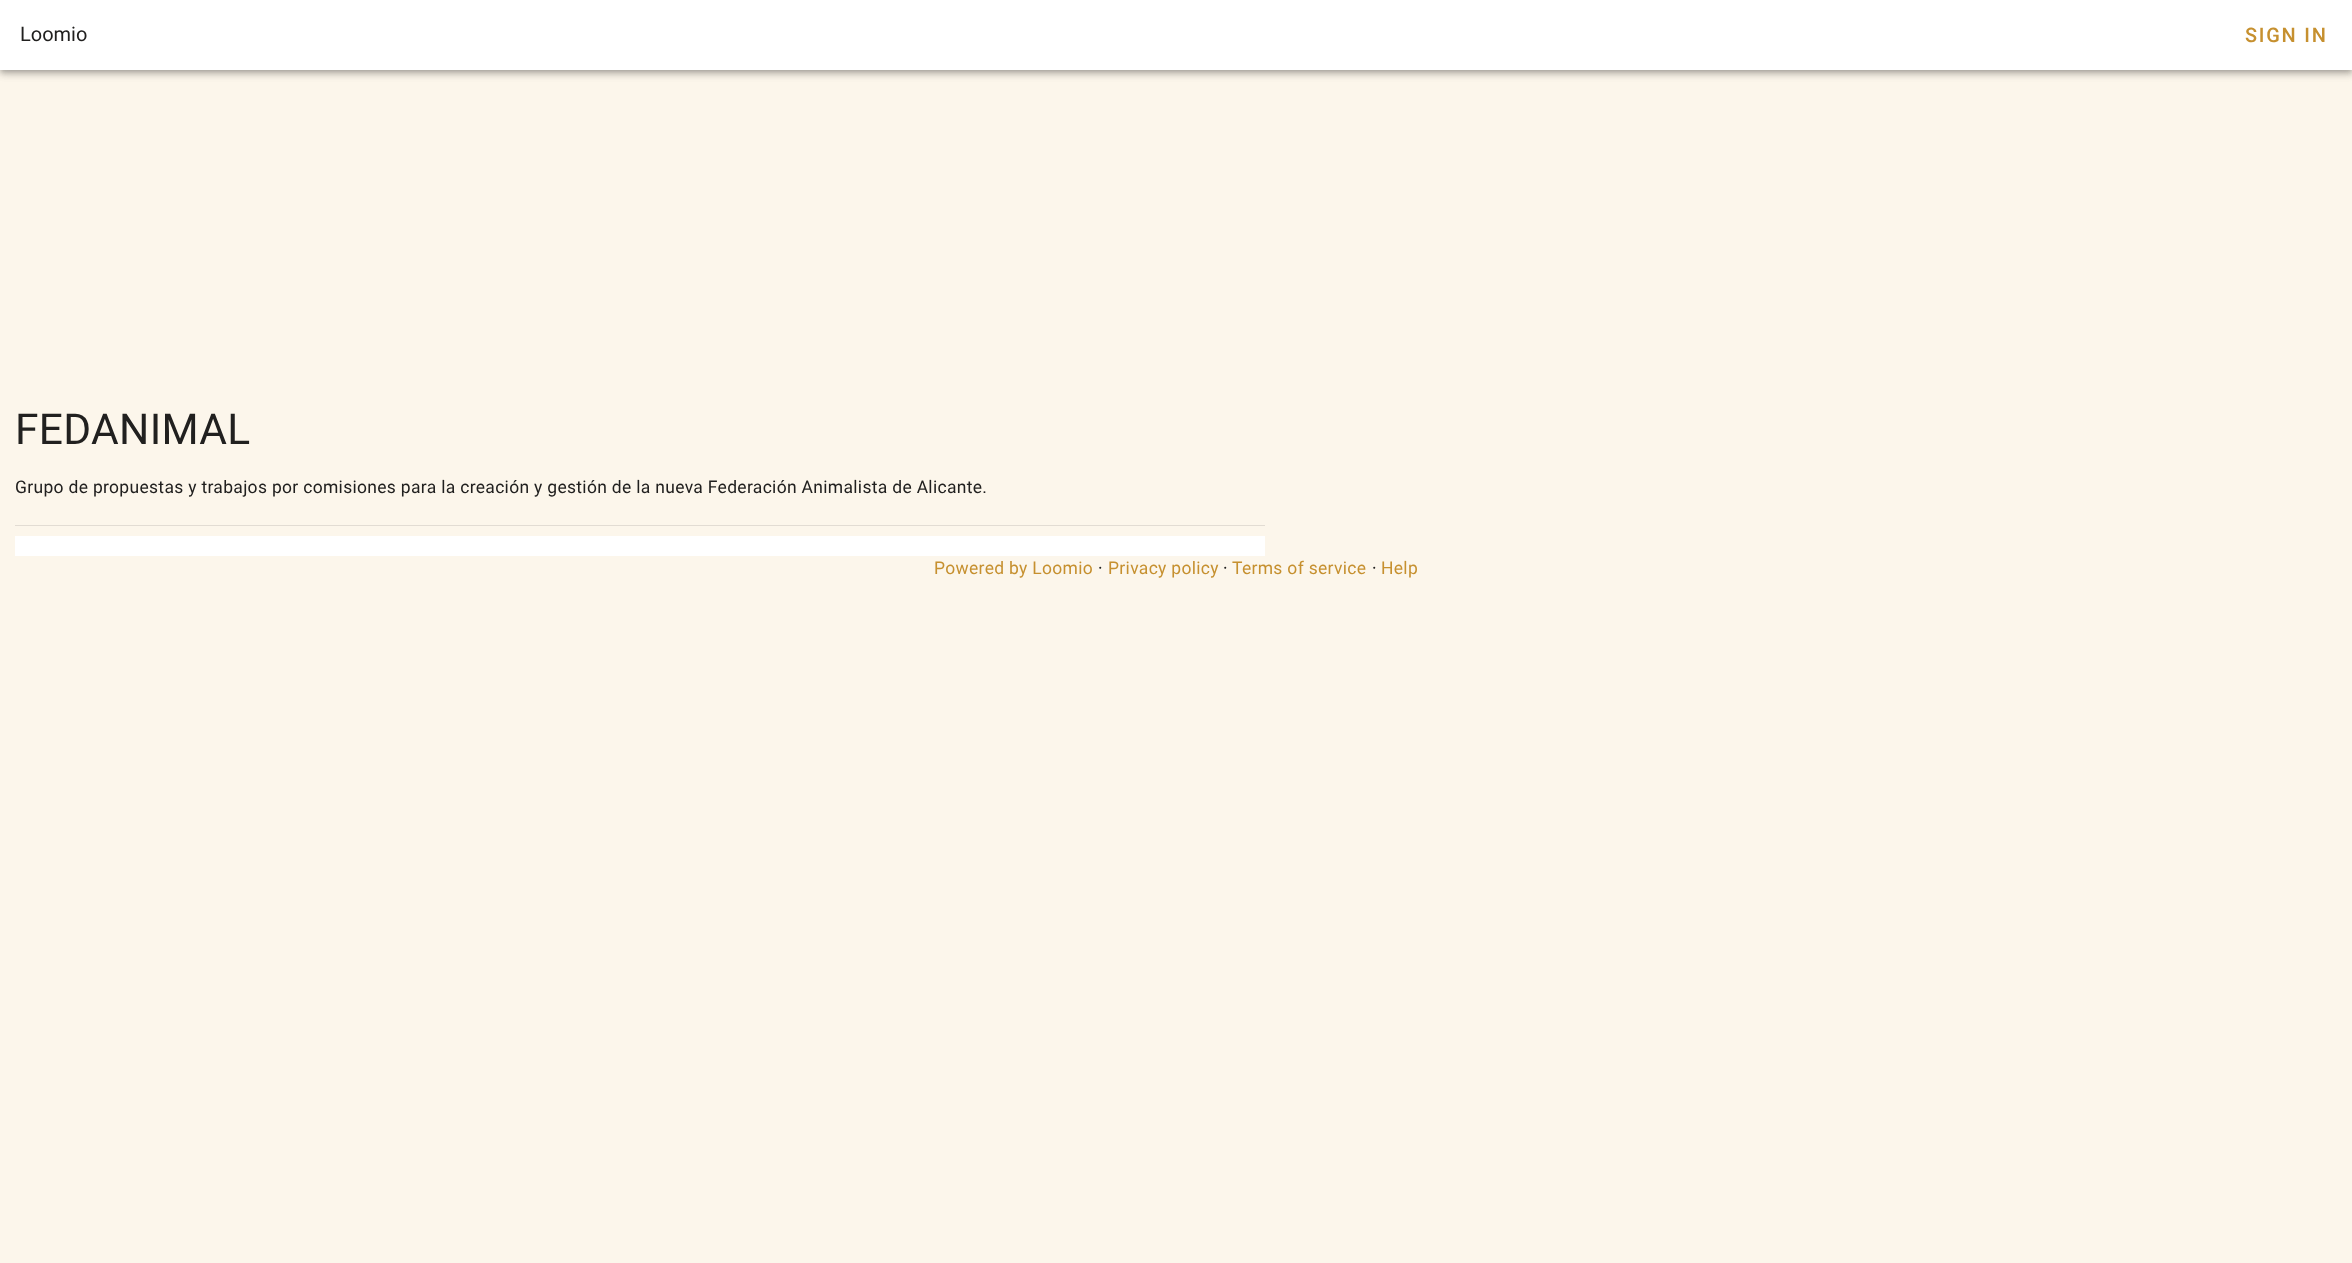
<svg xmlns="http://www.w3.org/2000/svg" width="2352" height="1263">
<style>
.a{font:20px Roboto;fill:#21201f}
.b{font:500 20px Roboto;letter-spacing:1.75px;fill:#c6902f}
.c{font:42.5px Roboto;letter-spacing:0.31px;fill:#21201f}
.d{font:17.5px Roboto;letter-spacing:0.31px;fill:#21201f}
.e{font:17.5px Roboto;letter-spacing:0.31px;fill:#c6902f}
</style>
<rect width="100%" height="100%" fill="#fcf6eb"/>
<path fill="#0000001f" filter="blur(6px)" d="M0 1h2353v70H0z"/>
<path fill="#00000024" filter="blur(3px)" d="M0 5h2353v70H0z"/>
<path fill="#00000033" filter="blur(2.5px)" d="M1 4h2350v67H1z"/>
<path fill="#fff" d="M0 0h2352v70H0z"/>
<path fill="#e2dcd3" d="M15 525h1250v1H15z"/>
<path fill="#fff" d="M15 536h1250v20H15z"/>
<text class="a" x="20" y="41">Loomio</text>
<text class="b" x="2245" y="42">SIGN IN</text>
<text class="c" x="15" y="444">FEDANIMAL</text>
<text class="d" x="15" y="493">Grupo de propuestas y trabajos por comisiones para la creación y gestión de la nueva Federación Animalista de Alicante.</text>
<text class="e" x="934" y="574">Powered by Loomio</text>
<text class="d" x="1098" y="574">·</text>
<text class="e" x="1108" y="574">Privacy policy</text>
<text class="d" x="1223" y="574">·</text>
<text class="e" x="1232" y="574">Terms of service</text>
<text class="d" x="1372" y="574">·</text>
<text class="e" x="1381" y="574">Help</text>
</svg>
